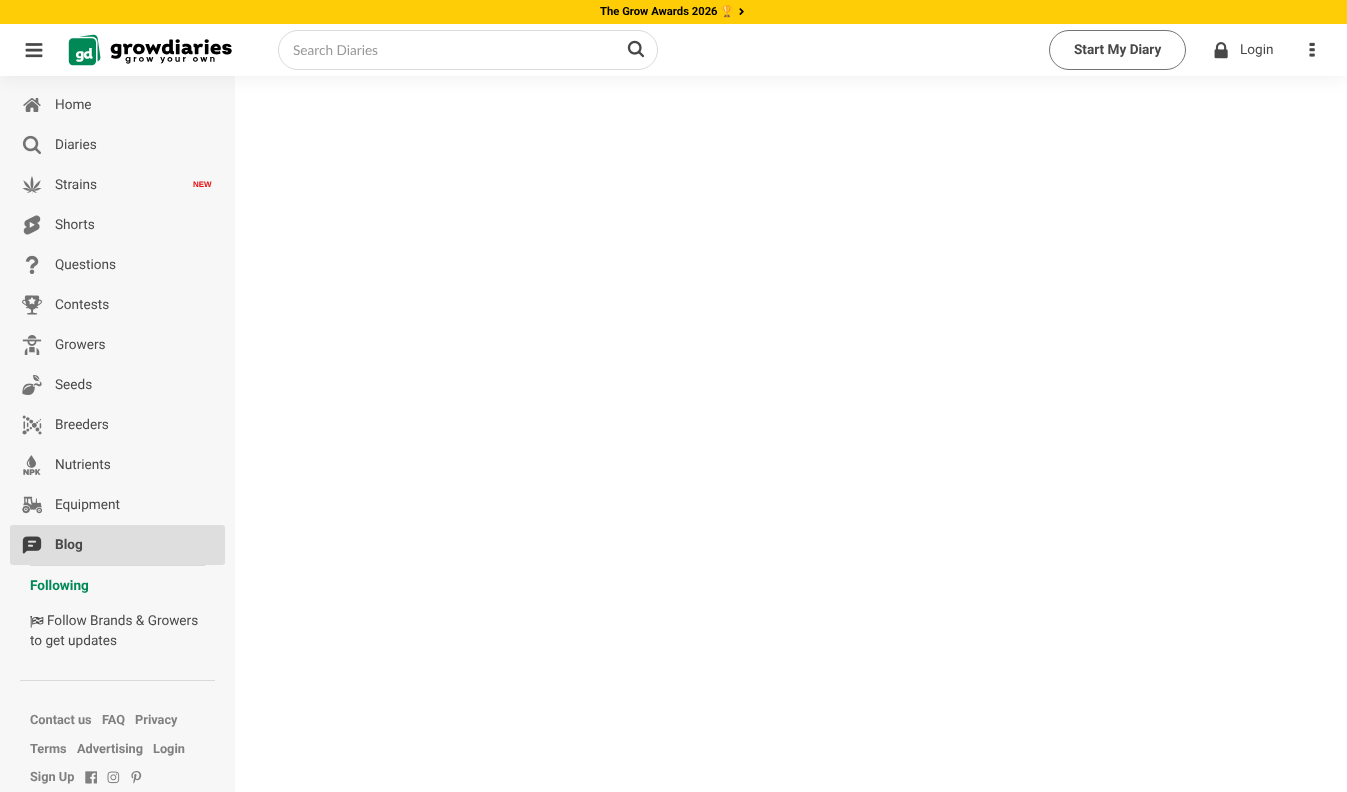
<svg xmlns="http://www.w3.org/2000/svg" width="1347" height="792">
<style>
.a{font:bold 11.25px Roboto;fill:#000}
.b{font:bold 11.25px Noto Color Emoji;fill:#000}
.c{font:13.6px Lato;fill:#989898}
.d{font:bold 13.6px Roboto;fill:#484848}
.e{font:13.6px Roboto;fill:#484848}
.f{font:bold 8px Liberation Sans;fill:#e31111}
.g{font:bold 13.6px Roboto;fill:#008957}
.h{font:bold 12.75px Roboto;fill:#808080}
</style>
<rect width="100%" height="100%" fill="#fff"/>
<path fill="#f7f7f7" d="M0 76h235v716H0z"/>
<image href="7.png" x="23" y="98" width="18" height="14"/>
<path fill="#00000012" filter="blur(10px)" d="M0 24h1347v52H0z"/>
<path fill="#ffcd06" d="M0 0h1347v24H0z"/>
<image href="1.png" x="739" y="8" width="5" height="7"/>
<path fill="#fff" d="M0 24h1347v52H0z"/>
<image href="2.png" x="25" y="43" width="18" height="15"/>
<image href="3.png" x="68" y="34" width="164" height="32"/>
<rect fill="none" stroke="#dadada" x="278.5" y="30.5" width="379" height="39" rx="19.5"/>
<image href="4.png" x="627" y="40" width="18" height="18"/>
<rect fill="none" stroke="#737373" x="1049.5" y="30.5" width="136" height="39" rx="19.5"/>
<image href="5.png" x="1214" y="42" width="14" height="17"/>
<image href="6.png" x="1309" y="42" width="6" height="15"/>
<image href="8.png" x="22" y="135" width="19" height="20"/>
<image href="9.png" x="22" y="176" width="20" height="18"/>
<image href="10.png" x="23" y="215" width="18" height="20"/>
<image href="11.png" x="25" y="255" width="14" height="19"/>
<image href="12.png" x="22" y="295" width="20" height="20"/>
<image href="13.png" x="22" y="335" width="20" height="20"/>
<image href="14.png" x="22" y="375" width="20" height="20"/>
<image href="15.png" x="22" y="415" width="20" height="20"/>
<image href="16.png" x="23" y="455" width="18" height="20"/>
<image href="17.png" x="22" y="496" width="20" height="18"/>
<rect fill="#dedede" x="10" y="525" width="215" height="40" rx="3"/>
<image href="18.png" x="22" y="536" width="20" height="18"/>
<path fill="#dadada" d="M30 565h175v1H30z"/>
<image href="19.png" x="30" y="616" width="14" height="12"/>
<path fill="#dadada" d="M20 680h195v1H20z"/>
<image href="20.png" x="85" y="771" width="12" height="13"/>
<image href="21.png" x="107" y="771" width="13" height="13"/>
<image href="22.png" x="131" y="771" width="11" height="13"/>
<text class="a" x="600" y="15">The Grow Awards 2026</text>
<text class="b" x="720" y="15">🏆</text>
<text class="c" x="293" y="55">Search Diaries</text>
<text class="d" x="1074" y="54">Start My Diary</text>
<text class="e" x="1240" y="54">Login</text>
<text class="e" x="55" y="109">Home</text>
<text class="e" x="55" y="149">Diaries</text>
<text class="e" x="55" y="189">Strains</text>
<text class="f" x="193" y="187">NEW</text>
<text class="e" x="55" y="229">Shorts</text>
<text class="e" x="55" y="269">Questions</text>
<text class="e" x="55" y="309">Contests</text>
<text class="e" x="55" y="349">Growers</text>
<text class="e" x="55" y="389">Seeds</text>
<text class="e" x="55" y="429">Breeders</text>
<text class="e" x="55" y="469">Nutrients</text>
<text class="e" x="55" y="509">Equipment</text>
<text class="d" x="55" y="549">Blog</text>
<text class="g" x="30" y="590">Following</text>
<text class="e" x="47" y="625">Follow Brands &amp; Growers</text>
<text class="e" x="30" y="645">to get updates</text>
<text class="h" x="30" y="724">Contact us</text>
<text class="h" x="102" y="724">FAQ</text>
<text class="h" x="135" y="724">Privacy</text>
<text class="h" x="30" y="753">Terms</text>
<text class="h" x="77" y="753">Advertising</text>
<text class="h" x="153" y="753">Login</text>
<text class="h" x="30" y="781">Sign Up</text>
</svg>
